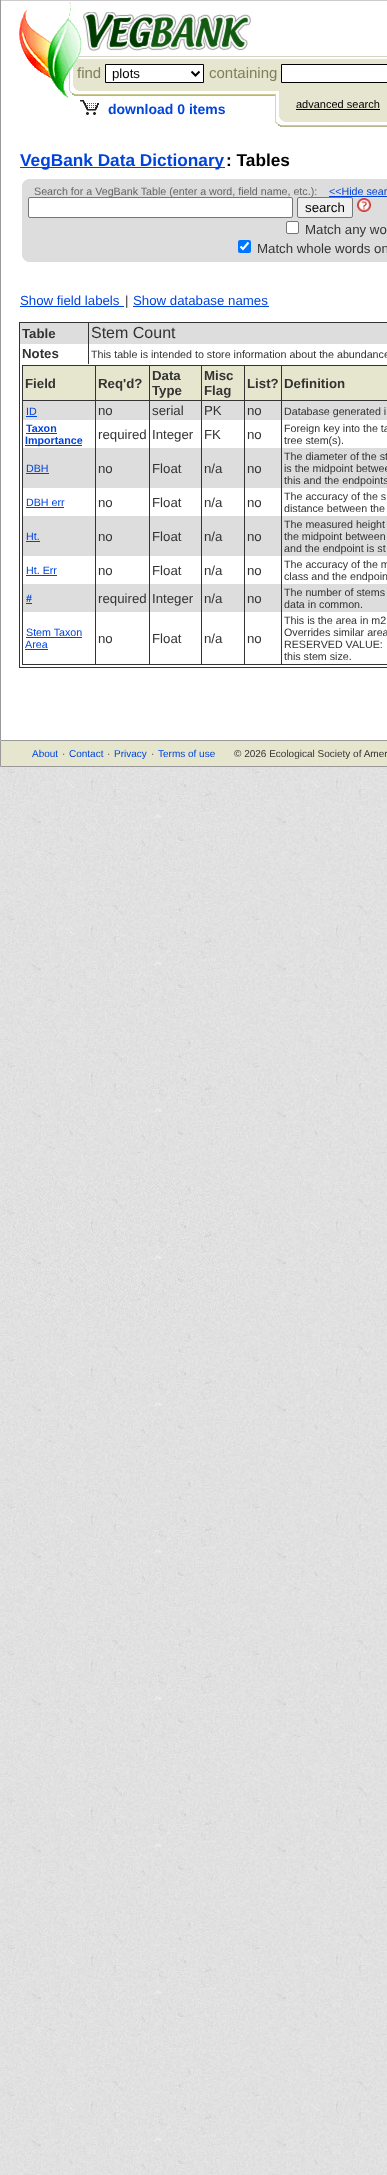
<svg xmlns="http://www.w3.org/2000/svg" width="387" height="2175">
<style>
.a{font:15px Liberation Sans;fill:#808059}
.b{font:13.25px Liberation Sans;fill:#000}
.c{font:bold 14px Liberation Sans;fill:#04d}
.d{font:11px Liberation Sans;fill:#000}
.e{font:bold 17.25px Liberation Sans;fill:#04d}
.f{font:bold 17.25px Liberation Sans;fill:#000}
.g{font:10.7px Liberation Sans;fill:#666}
.h{font:10.7px Liberation Sans;fill:#04d}
.i{font:13.25px Liberation Sans;fill:#333}
.j{font:13.25px Liberation Sans;fill:#04d}
.k{font:bold 13.25px Liberation Sans;fill:#333}
.l{font:16px Liberation Sans;fill:#333}
.m{font:10.7px Liberation Sans;fill:#333}
.n{font:bold 10.7px Liberation Sans;fill:#04d}
.o{font:10px Liberation Sans;fill:#04d}
.p{font:10px Liberation Sans;fill:#333}
</style>
<rect width="100%" height="100%" fill="#fff"/>
<image href="1.png" x="0" y="767" width="387" height="1408"/>
<path fill="#ccc" d="M0 0h387v1H0z"/>
<path fill="#999" d="M0 0h1v740H0z"/>
<image href="3.png" x="82" y="12" width="170" height="40"/>
<image href="4.png" x="69" y="56" width="318" height="71"/>
<path fill="#fff" stroke="#000" d="M105.5 64.5h98v18H105.5z"/>
<path fill="none" stroke="#000" stroke-width="2" d="M191.5 71.5l4 4l4-4"/>
<path fill="#fff" stroke="#000" d="M281.5 64.5h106v18H281.5z"/>
<image href="5.png" x="80" y="100" width="19" height="15"/>
<path fill="#000" d="M296 109h84v1H296z"/>
<path fill="#04d" d="M20 167h205v1H20z"/>
<path fill="#ddd" d="M22 179h365v83H22z"/>
<image href="6.png" x="22" y="179" width="5" height="5"/>
<path fill="#04d" d="M329 196h58v1H329z"/>
<image href="7.png" x="357" y="198" width="14" height="14"/>
<rect fill="#fff" stroke="#767676" x="286.5" y="221.5" width="12" height="12" rx="1.5"/>
<rect fill="#0075ff" x="238" y="240" width="13" height="13" rx="2"/>
<path fill="none" stroke="#fff" stroke-width="2.1" d="M240.5 246.5l2.5 2.5l5.5-6.5"/>
<image href="8.png" x="22" y="257" width="5" height="5"/>
<path fill="#04d" d="M20 306h104v1H20z"/>
<path fill="#04d" d="M133 306h136v1H133z"/>
<path fill="#333" d="M19 322h368v1H19z"/>
<path fill="#333" d="M19 667h368v1H19z"/>
<path fill="#333" d="M19 322h1v346H19z"/>
<path fill="#ddd" d="M20 323h367v21H20z"/>
<path fill="#333" d="M88 322h1v42H88z"/>
<path fill="#333" d="M22 365h365v1H22z"/>
<path fill="#333" d="M22 664h365v1H22z"/>
<path fill="#333" d="M22 365h1v300H22z"/>
<path fill="#e6e6cf" d="M23 366h72v34H23z"/>
<path fill="#ddd" d="M23 401h364v19H23z"/>
<path fill="#ddd" d="M23 448h364v40H23z"/>
<path fill="#ddd" d="M23 516h364v40H23z"/>
<path fill="#ddd" d="M23 584h364v28H23z"/>
<path fill="#333" d="M281 400h1v265H281z"/>
<path fill="#333" d="M281 400h106v1H281z"/>
<path fill="#333" d="M281 365h1v36H281z"/>
<path fill="#333" d="M244 400h1v265H244z"/>
<path fill="#333" d="M244 400h38v1H244z"/>
<path fill="#333" d="M244 365h1v36H244z"/>
<path fill="#333" d="M201 400h1v265H201z"/>
<path fill="#333" d="M201 400h44v1H201z"/>
<path fill="#333" d="M201 365h1v36H201z"/>
<path fill="#333" d="M149 400h1v265H149z"/>
<path fill="#333" d="M149 400h53v1H149z"/>
<path fill="#333" d="M149 365h1v36H149z"/>
<path fill="#333" d="M95 400h1v265H95z"/>
<path fill="#333" d="M95 400h55v1H95z"/>
<path fill="#333" d="M95 365h1v36H95z"/>
<path fill="#333" d="M22 400h74v1H22z"/>
<path fill="#e6e6cf" d="M96 366h53v34H96z"/>
<path fill="#e6e6cf" d="M150 366h51v34H150z"/>
<path fill="#e6e6cf" d="M202 366h42v34H202z"/>
<path fill="#e6e6cf" d="M245 366h36v34H245z"/>
<path fill="#e6e6cf" d="M282 366h105v34H282z"/>
<path fill="#04d" d="M26 416h11v1H26z"/>
<path fill="#04d" d="M26 433h31v1H26z"/>
<path fill="#04d" d="M25 445h57v1H25z"/>
<path fill="#04d" d="M26 473h23v1H26z"/>
<path fill="#04d" d="M26 507h38v1H26z"/>
<path fill="#04d" d="M26 541h14v1H26z"/>
<path fill="#04d" d="M26 575h31v1H26z"/>
<path fill="#04d" d="M26 603h6v1H26z"/>
<path fill="#04d" d="M26 637h56v1H26z"/>
<path fill="#04d" d="M25 649h23v1H25z"/>
<path fill="#e6e6cf" stroke="#999" d="M0.5 740.5h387v26H0.5z"/>
<text class="a" x="77" y="78">find</text>
<image href="2.png" x="19" y="2" width="63" height="96"/>
<text class="b" x="112" y="78">plots</text>
<text class="a" x="209" y="78">containing</text>
<text class="c" x="108" y="114">download 0 items</text>
<text class="d" x="296" y="108">advanced search</text>
<text class="e" x="20" y="166">VegBank Data Dictionary</text>
<text class="f" x="226" y="166">: Tables</text>
<text class="g" x="34" y="195">Search for a VegBank Table (enter a word, field name, etc.):</text>
<text class="h" x="329" y="195">&lt;&lt;Hide sear</text>
<rect fill="#fff" stroke="#767676" x="28.5" y="197.5" width="264" height="20" rx="1.5"/>
<rect fill="#efefef" stroke="#767676" x="297.5" y="197.5" width="55" height="20" rx="1.5"/>
<text class="b" x="305" y="212">search</text>
<text class="i" x="305" y="234">Match any wo</text>
<text class="i" x="257" y="253">Match whole words on</text>
<text class="j" x="20" y="305">Show field labels</text>
<text class="i" x="125" y="305">|</text>
<text class="j" x="133" y="305">Show database names</text>
<text class="k" x="22" y="338">Table</text>
<text class="l" x="91" y="338">Stem Count</text>
<text class="k" x="22" y="358">Notes</text>
<text class="m" x="91" y="358">This table is intended to store information about the abundance</text>
<text class="k" x="25" y="388">Field</text>
<text class="k" x="98" y="388">Req'd?</text>
<text class="k" x="152" y="380">Data</text>
<text class="k" x="152" y="395">Type</text>
<text class="k" x="204" y="380">Misc</text>
<text class="k" x="204" y="395">Flag</text>
<text class="k" x="247" y="388">List?</text>
<text class="k" x="284" y="388">Definition</text>
<text class="h" x="26" y="415">ID</text>
<text class="i" x="98" y="415">no</text>
<text class="i" x="152" y="415">serial</text>
<text class="i" x="204" y="415">PK</text>
<text class="i" x="247" y="415">no</text>
<text class="m" x="284" y="415">Database generated i</text>
<text class="n" x="26" y="432">Taxon</text>
<text class="n" x="25" y="444">Importance</text>
<text class="i" x="98" y="439">required</text>
<text class="i" x="152" y="439">Integer</text>
<text class="i" x="204" y="439">FK</text>
<text class="i" x="247" y="439">no</text>
<text class="m" x="284" y="432">Foreign key into the ta</text>
<text class="m" x="284" y="444">tree stem(s).</text>
<text class="h" x="26" y="472">DBH</text>
<text class="i" x="98" y="473">no</text>
<text class="i" x="152" y="473">Float</text>
<text class="i" x="204" y="473">n/a</text>
<text class="i" x="247" y="473">no</text>
<text class="m" x="284" y="460">The diameter of the st</text>
<text class="m" x="284" y="472">is the midpoint betwee</text>
<text class="m" x="284" y="484">this and the endpoints</text>
<text class="h" x="26" y="506">DBH err</text>
<text class="i" x="98" y="507">no</text>
<text class="i" x="152" y="507">Float</text>
<text class="i" x="204" y="507">n/a</text>
<text class="i" x="247" y="507">no</text>
<text class="m" x="284" y="500">The accuracy of the s</text>
<text class="m" x="284" y="512">distance between the</text>
<text class="h" x="26" y="540">Ht.</text>
<text class="i" x="98" y="541">no</text>
<text class="i" x="152" y="541">Float</text>
<text class="i" x="204" y="541">n/a</text>
<text class="i" x="247" y="541">no</text>
<text class="m" x="284" y="528">The measured height</text>
<text class="m" x="284" y="540">the midpoint between</text>
<text class="m" x="284" y="552">and the endpoint is st</text>
<text class="h" x="26" y="574">Ht. Err</text>
<text class="i" x="98" y="575">no</text>
<text class="i" x="152" y="575">Float</text>
<text class="i" x="204" y="575">n/a</text>
<text class="i" x="247" y="575">no</text>
<text class="m" x="284" y="568">The accuracy of the m</text>
<text class="m" x="284" y="580">class and the endpoin</text>
<text class="n" x="26" y="602">#</text>
<text class="i" x="98" y="603">required</text>
<text class="i" x="152" y="603">Integer</text>
<text class="i" x="204" y="603">n/a</text>
<text class="i" x="247" y="603">no</text>
<text class="m" x="284" y="596">The number of stems</text>
<text class="m" x="284" y="608">data in common.</text>
<text class="h" x="26" y="636">Stem Taxon</text>
<text class="h" x="25" y="648">Area</text>
<text class="i" x="98" y="643">no</text>
<text class="i" x="152" y="643">Float</text>
<text class="i" x="204" y="643">n/a</text>
<text class="i" x="247" y="643">no</text>
<text class="m" x="284" y="624">This is the area in m2</text>
<text class="m" x="284" y="636">Overrides similar area</text>
<text class="m" x="284" y="648">RESERVED VALUE:</text>
<text class="m" x="284" y="660">this stem size.</text>
<text class="o" x="32" y="757">About</text>
<text class="p" x="62" y="757">·</text>
<text class="o" x="69" y="757">Contact</text>
<text class="p" x="107" y="757">·</text>
<text class="o" x="114" y="757">Privacy</text>
<text class="p" x="151" y="757">·</text>
<text class="o" x="158" y="757">Terms of use</text>
<text class="p" x="234" y="757">© 2026 Ecological Society of Amer</text>
</svg>
